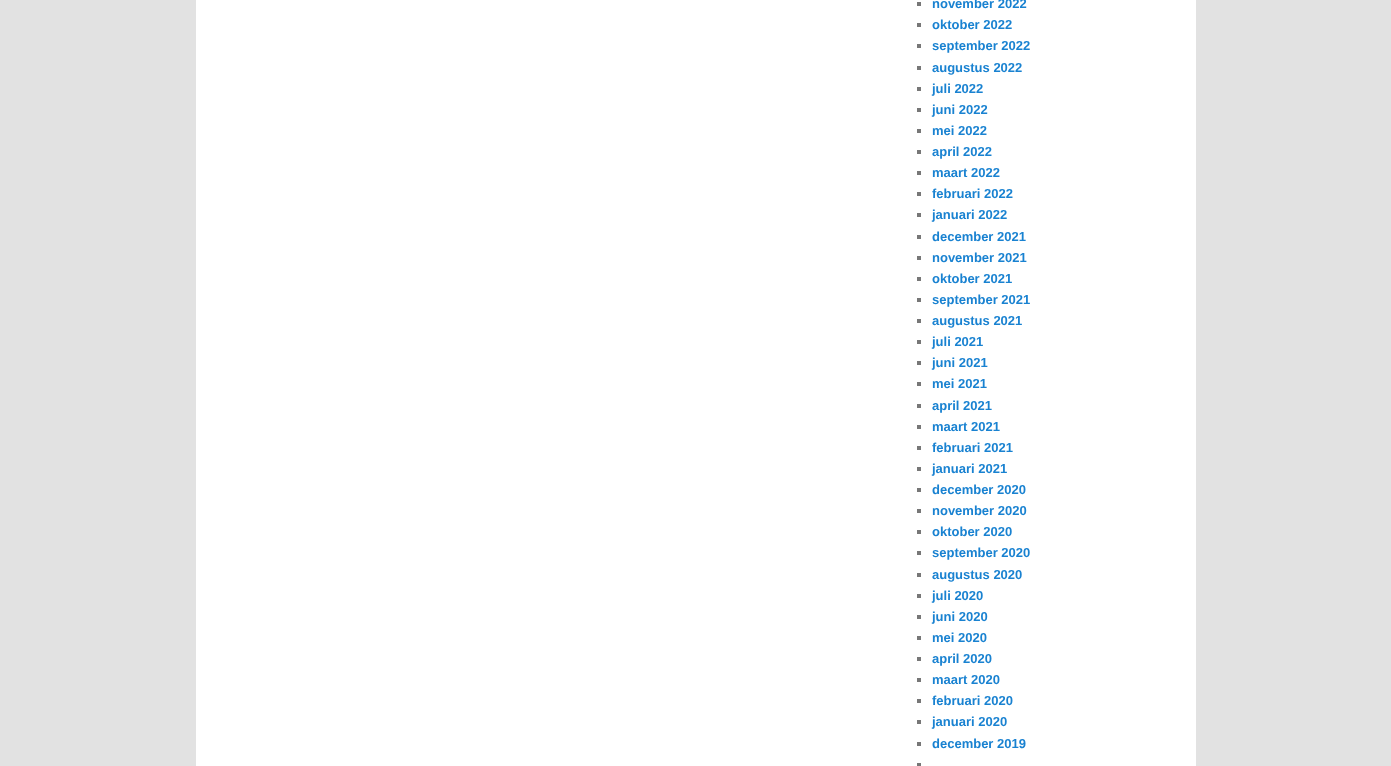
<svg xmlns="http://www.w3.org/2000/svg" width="1391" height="766">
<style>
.a{font:bold 13px Liberation Sans;fill:#1982d1}
</style>
<rect width="100%" height="100%" fill="#e2e2e2"/>
<path fill="#fff" d="M196 0h1000v766H196z"/>
<path fill="#777" d="M917 2h4v4H917z"/>
<path fill="#777" d="M917 23h4v4H917z"/>
<path fill="#777" d="M917 44h4v4H917z"/>
<path fill="#777" d="M917 66h4v4H917z"/>
<path fill="#777" d="M917 87h4v4H917z"/>
<path fill="#777" d="M917 108h4v4H917z"/>
<path fill="#777" d="M917 129h4v4H917z"/>
<path fill="#777" d="M917 150h4v4H917z"/>
<path fill="#777" d="M917 171h4v4H917z"/>
<path fill="#777" d="M917 192h4v4H917z"/>
<path fill="#777" d="M917 213h4v4H917z"/>
<path fill="#777" d="M917 235h4v4H917z"/>
<path fill="#777" d="M917 256h4v4H917z"/>
<path fill="#777" d="M917 277h4v4H917z"/>
<path fill="#777" d="M917 298h4v4H917z"/>
<path fill="#777" d="M917 319h4v4H917z"/>
<path fill="#777" d="M917 340h4v4H917z"/>
<path fill="#777" d="M917 361h4v4H917z"/>
<path fill="#777" d="M917 382h4v4H917z"/>
<path fill="#777" d="M917 404h4v4H917z"/>
<path fill="#777" d="M917 425h4v4H917z"/>
<path fill="#777" d="M917 446h4v4H917z"/>
<path fill="#777" d="M917 467h4v4H917z"/>
<path fill="#777" d="M917 488h4v4H917z"/>
<path fill="#777" d="M917 509h4v4H917z"/>
<path fill="#777" d="M917 530h4v4H917z"/>
<path fill="#777" d="M917 551h4v4H917z"/>
<path fill="#777" d="M917 573h4v4H917z"/>
<path fill="#777" d="M917 594h4v4H917z"/>
<path fill="#777" d="M917 615h4v4H917z"/>
<path fill="#777" d="M917 636h4v4H917z"/>
<path fill="#777" d="M917 657h4v4H917z"/>
<path fill="#777" d="M917 678h4v4H917z"/>
<path fill="#777" d="M917 699h4v4H917z"/>
<path fill="#777" d="M917 720h4v4H917z"/>
<path fill="#777" d="M917 742h4v4H917z"/>
<path fill="#777" d="M917 763h4v3H917z"/>
<text class="a" x="932" y="8">november 2022</text>
<text class="a" x="932" y="29">oktober 2022</text>
<text class="a" x="932" y="50">september 2022</text>
<text class="a" x="932" y="72">augustus 2022</text>
<text class="a" x="932" y="93">juli 2022</text>
<text class="a" x="932" y="114">juni 2022</text>
<text class="a" x="932" y="135">mei 2022</text>
<text class="a" x="932" y="156">april 2022</text>
<text class="a" x="932" y="177">maart 2022</text>
<text class="a" x="932" y="198">februari 2022</text>
<text class="a" x="932" y="219">januari 2022</text>
<text class="a" x="932" y="241">december 2021</text>
<text class="a" x="932" y="262">november 2021</text>
<text class="a" x="932" y="283">oktober 2021</text>
<text class="a" x="932" y="304">september 2021</text>
<text class="a" x="932" y="325">augustus 2021</text>
<text class="a" x="932" y="346">juli 2021</text>
<text class="a" x="932" y="367">juni 2021</text>
<text class="a" x="932" y="388">mei 2021</text>
<text class="a" x="932" y="410">april 2021</text>
<text class="a" x="932" y="431">maart 2021</text>
<text class="a" x="932" y="452">februari 2021</text>
<text class="a" x="932" y="473">januari 2021</text>
<text class="a" x="932" y="494">december 2020</text>
<text class="a" x="932" y="515">november 2020</text>
<text class="a" x="932" y="536">oktober 2020</text>
<text class="a" x="932" y="557">september 2020</text>
<text class="a" x="932" y="579">augustus 2020</text>
<text class="a" x="932" y="600">juli 2020</text>
<text class="a" x="932" y="621">juni 2020</text>
<text class="a" x="932" y="642">mei 2020</text>
<text class="a" x="932" y="663">april 2020</text>
<text class="a" x="932" y="684">maart 2020</text>
<text class="a" x="932" y="705">februari 2020</text>
<text class="a" x="932" y="726">januari 2020</text>
<text class="a" x="932" y="748">december 2019</text>
</svg>
